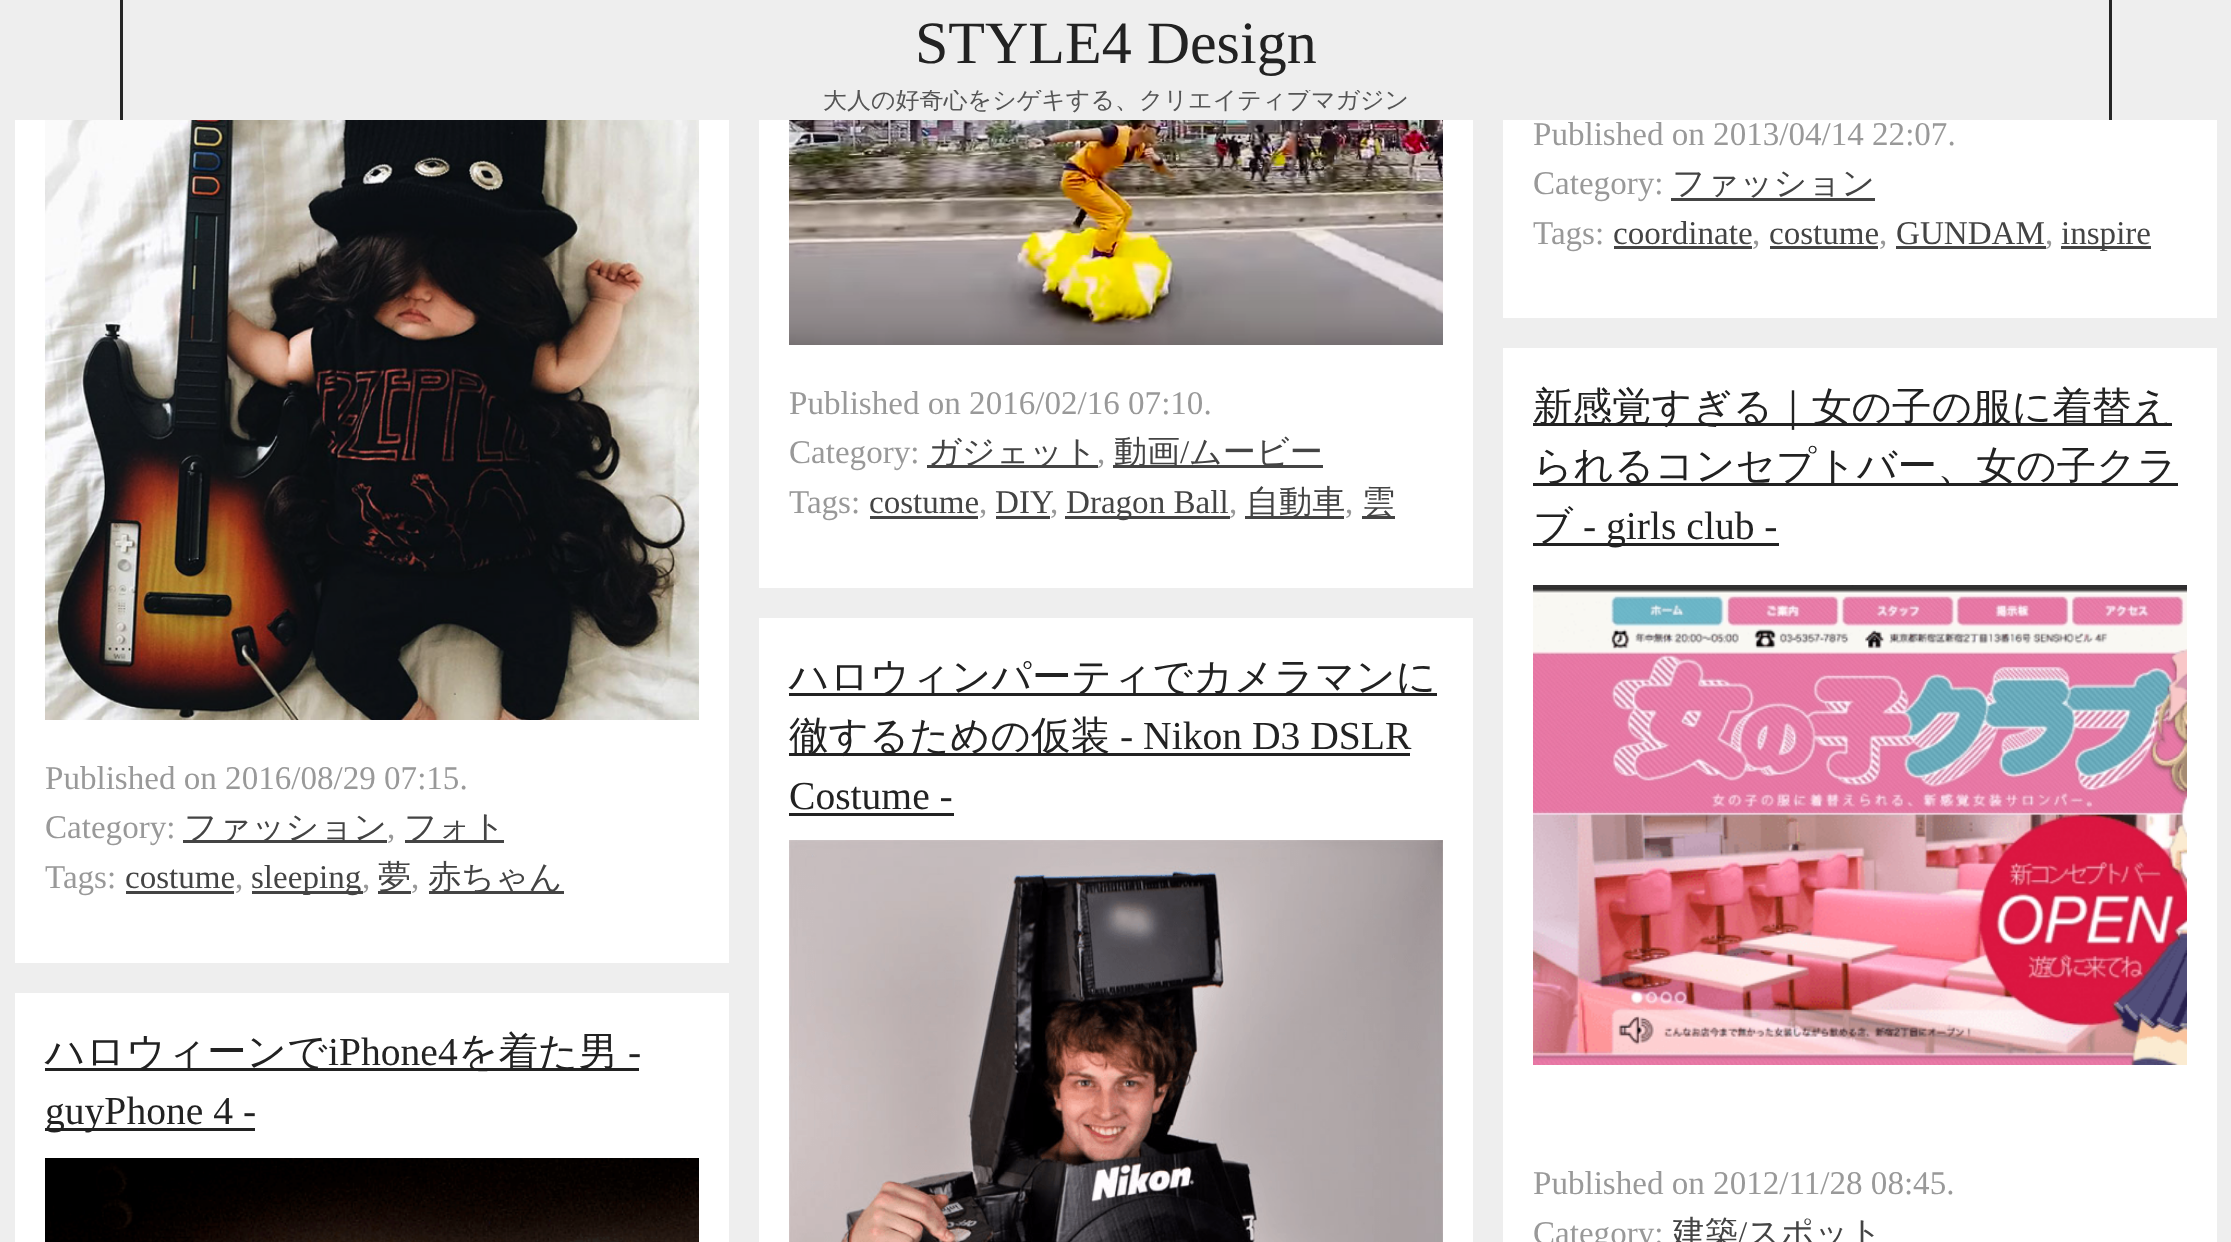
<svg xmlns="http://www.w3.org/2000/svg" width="2231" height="1242">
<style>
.a{font:60px Liberation Serif;fill:#222}
.b{font:500 24px WenQuanYi Zen Hei;fill:#555}
.c{font:33.1px Liberation Serif;fill:#999}
.d{font:500 33.1px WenQuanYi Zen Hei;fill:#444}
.e{font:33.1px Liberation Serif;fill:#444}
.f{font:500 39.6px WenQuanYi Zen Hei;fill:#222}
.g{font:39.6px Liberation Serif;fill:#222}
</style>
<defs>
<clipPath id="clip1"><path d="M0 90h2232v30H0z"/></clipPath>
</defs>
<rect width="100%" height="100%" fill="#eee"/>
<path fill="#252525" d="M120 0h3v120H120z"/>
<path fill="#252525" d="M2109 0h3v120H2109z"/>
<path fill="#fff" d="M1503 120h714v198H1503z"/>
<path fill="#444" d="M1671 198h204v3H1671z"/>
<path fill="#444" d="M1614 246h138v3H1614z"/>
<path fill="#444" d="M1770 246h108v3H1770z"/>
<path fill="#444" d="M1896 246h150v3H1896z"/>
<path fill="#444" d="M2061 246h90v3H2061z"/>
<path fill="#fff" d="M759 120h714v468H759z"/>
<image href="1.png" x="789" y="120" width="654" height="225"/>
<path fill="#444" d="M927 465h171v3H927z"/>
<path fill="#444" d="M1113 465h210v3H1113z"/>
<path fill="#444" d="M870 516h108v3H870z"/>
<path fill="#444" d="M996 516h54v3H996z"/>
<path fill="#444" d="M1065 516h165v3H1065z"/>
<path fill="#444" d="M1245 516h99v3H1245z"/>
<path fill="#444" d="M1362 516h33v3H1362z"/>
<path fill="#fff" d="M1503 348h714v894H1503z"/>
<path fill="#222" d="M1533 423h639v3H1533z"/>
<path fill="#222" d="M1533 483h645v3H1533z"/>
<path fill="#222" d="M1533 543h246v3H1533z"/>
<image href="2.png" x="1533" y="585" width="654" height="480"/>
<path fill="#fff" d="M759 618h714v624H759z"/>
<path fill="#222" d="M789 693h648v3H789z"/>
<path fill="#222" d="M789 753h621v3H789z"/>
<path fill="#222" d="M789 813h165v3H789z"/>
<image href="3.png" x="789" y="840" width="654" height="402"/>
<path fill="#fff" d="M15 120h714v843H15z"/>
<image href="4.png" x="45" y="120" width="654" height="600"/>
<path fill="#444" d="M183 840h204v3H183z"/>
<path fill="#444" d="M405 840h99v3H405z"/>
<path fill="#444" d="M126 891h108v3H126z"/>
<path fill="#444" d="M252 891h111v3H252z"/>
<path fill="#444" d="M378 891h33v3H378z"/>
<path fill="#444" d="M429 891h135v3H429z"/>
<path fill="#fff" d="M15 993h714v249H15z"/>
<path fill="#222" d="M45 1068h594v3H45z"/>
<path fill="#222" d="M45 1128h210v3H45z"/>
<image href="5.png" x="45" y="1158" width="654" height="84"/>
<text class="a" x="915" y="63">STYLE4 Design</text>
<g clip-path="url(#clip1)">
<text class="b" x="823" y="108">大人の好奇心をシゲキする、クリエイティブマガジン</text>
</g>
<text class="c" x="1533" y="145">Published on 2013/04/14 22:07.</text>
<text class="c" x="1533" y="194">Category:</text>
<text class="d" x="1672" y="194">ファッション</text>
<text class="c" x="1533" y="244">Tags:</text>
<text class="e" x="1613" y="244">coordinate</text>
<text class="c" x="1752" y="244">,</text>
<text class="e" x="1769" y="244">costume</text>
<text class="c" x="1879" y="244">,</text>
<text class="e" x="1896" y="244">GUNDAM</text>
<text class="c" x="2045" y="244">,</text>
<text class="e" x="2061" y="244">inspire</text>
<text class="c" x="789" y="414">Published on 2016/02/16 07:10.</text>
<text class="c" x="789" y="463">Category:</text>
<text class="d" x="928" y="463">ガジェット</text>
<text class="c" x="1097" y="463">,</text>
<text class="d" x="1114" y="463">動画</text>
<text class="e" x="1180" y="463">/</text>
<text class="d" x="1189" y="463">ムービー</text>
<text class="c" x="789" y="513">Tags:</text>
<text class="e" x="869" y="513">costume</text>
<text class="c" x="979" y="513">,</text>
<text class="e" x="995" y="513">DIY</text>
<text class="e" x="1066" y="513">Dragon Ball</text>
<text class="d" x="1246" y="513">自動車</text>
<text class="d" x="1362" y="513">雲</text>
<text class="c" x="1050" y="513">,</text>
<text class="c" x="1229" y="513">,</text>
<text class="c" x="1345" y="513">,</text>
<text class="f" x="1533" y="420">新感覚すぎる｜女の子の服に着替え</text>
<text class="f" x="1533" y="479">られるコンセプトバー、女の子クラ</text>
<text class="f" x="1533" y="539">ブ</text>
<text class="g" x="1583" y="539">- girls club -</text>
<text class="c" x="1533" y="1194">Published on 2012/11/28 08:45.</text>
<text class="c" x="1533" y="1244">Category:</text>
<text class="d" x="1672" y="1244">建築</text>
<text class="e" x="1738" y="1244">/</text>
<text class="d" x="1747" y="1244">スポット</text>
<text class="f" x="789" y="690">ハロウィンパーティでカメラマンに</text>
<text class="f" x="789" y="749">徹するための仮装</text>
<text class="g" x="1120" y="749">- Nikon D3 DSLR</text>
<text class="g" x="789" y="809">Costume -</text>
<text class="c" x="45" y="789">Published on 2016/08/29 07:15.</text>
<text class="c" x="45" y="838">Category:</text>
<text class="d" x="184" y="838">ファッション</text>
<text class="c" x="387" y="838">,</text>
<text class="d" x="404" y="838">フォト</text>
<text class="c" x="45" y="888">Tags:</text>
<text class="e" x="125" y="888">costume</text>
<text class="c" x="235" y="888">,</text>
<text class="e" x="251" y="888">sleeping</text>
<text class="c" x="362" y="888">,</text>
<text class="d" x="378" y="888">夢</text>
<text class="c" x="411" y="888">,</text>
<text class="d" x="428" y="888">赤ちゃん</text>
<text class="f" x="45" y="1065">ハロウィーンで</text>
<text class="g" x="328" y="1065">iPhone4</text>
<text class="f" x="458" y="1065">を着た男</text>
<text class="g" x="628" y="1065">-</text>
<text class="g" x="45" y="1124">guyPhone 4 -</text>
</svg>
